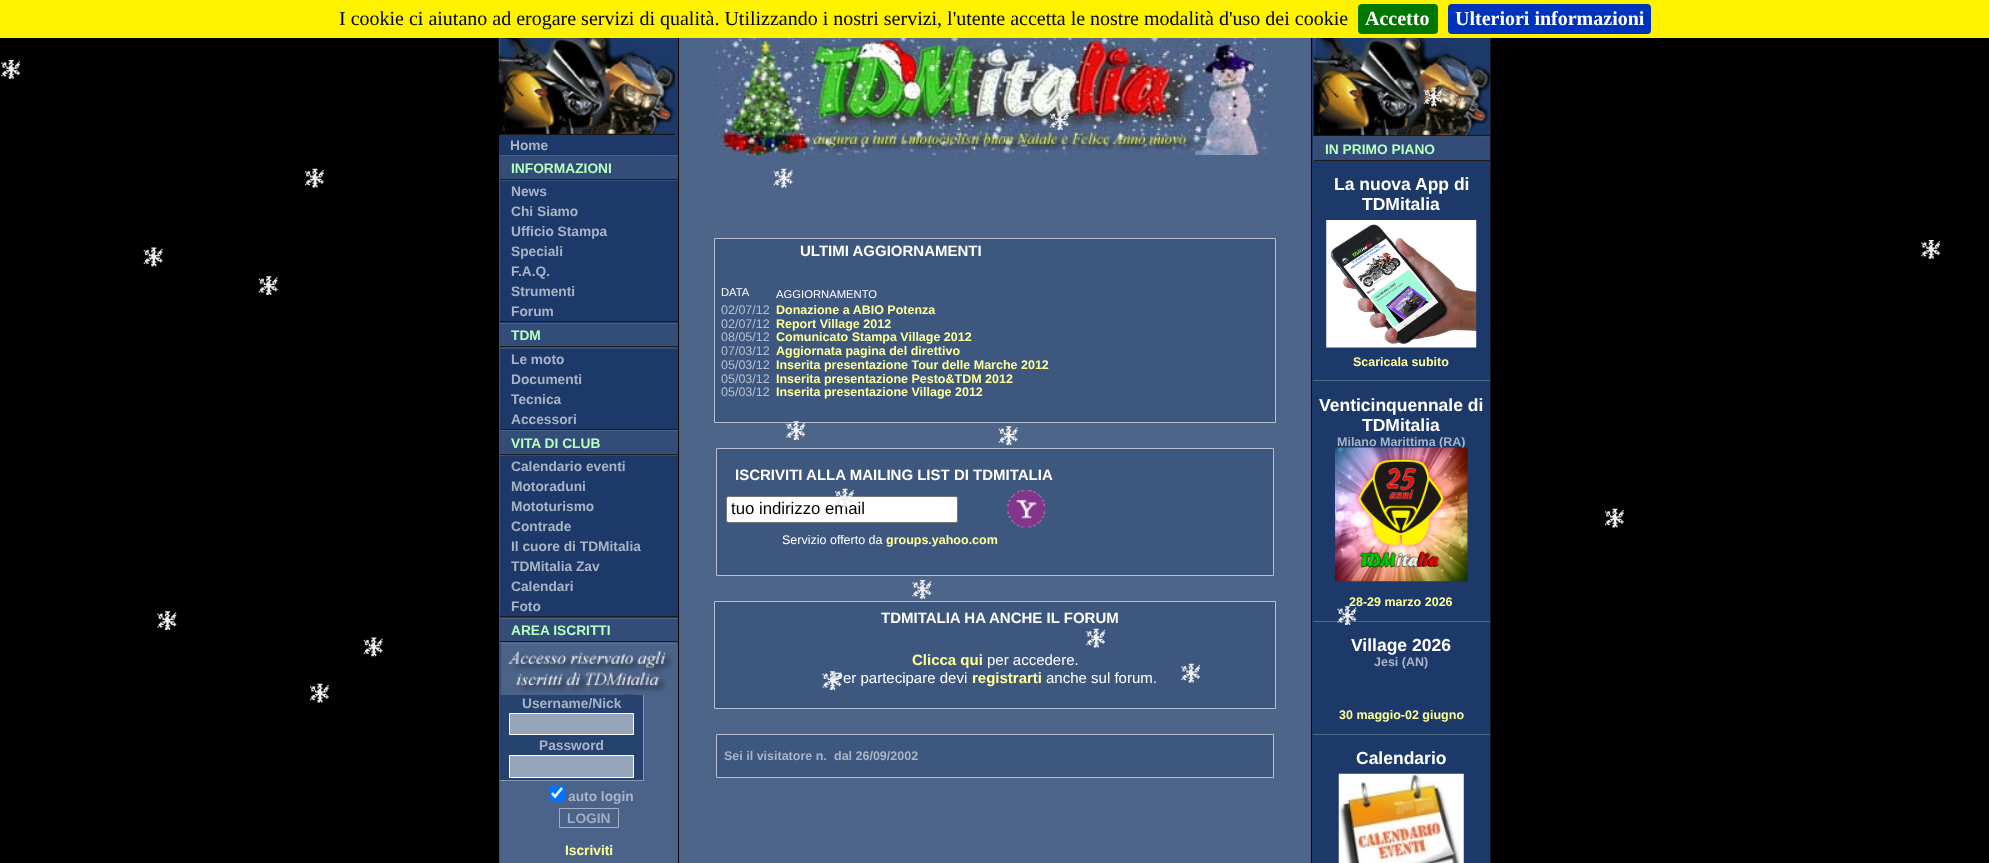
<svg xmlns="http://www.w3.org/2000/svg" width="1989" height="863">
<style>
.a{font:20px Liberation Serif;fill:#000}
.b{font:bold 20px Liberation Serif;fill:#fff}
.c{font:bold 13.75px Liberation Sans;fill:#a9b4c6}
.d{font:bold 13.75px Liberation Sans;fill:#b5ffbf}
.e{font:bold 13.75px Liberation Sans;fill:#a2aec2}
.f{font:bold 13.75px Liberation Sans;fill:#ff9}
.g{font:bold 15px Liberation Sans;fill:#fff}
.h{font:11.25px Liberation Sans;fill:#fff}
.i{font:12.5px Liberation Sans;fill:#b6c0cf}
.j{font:bold 12.5px Liberation Sans;fill:#ff9}
.k{font:16.75px Liberation Sans;fill:#000}
.l{font:12.5px Liberation Sans;fill:#fff}
.m{font:bold 15px Liberation Sans;fill:#ff9}
.n{font:15px Liberation Sans;fill:#fff}
.o{font:bold 12.5px Liberation Sans;fill:#a9b4c6}
.p{font:bold 17.5px Liberation Sans;fill:#fff}
</style>
<rect width="100%" height="100%" fill="#000"/>
<path fill="#fff200" d="M0 0h1989v38H0z"/>
<rect fill="#070" x="1358" y="4" width="80" height="30" rx="4"/>
<rect fill="#03b" x="1448" y="4" width="203" height="30" rx="4"/>
<image href="1.png" x="1" y="60" width="19" height="19"/>
<path fill="#1c3969" d="M1312 38h178v825H1312z"/>
<path fill="#4c6388" d="M1313 136h177v1H1313z"/>
<path fill="#1c1c1c" d="M1313 160h177v1H1313z"/>
<path fill="#38517b" d="M1313 136h1v25H1313z"/>
<image href="9.png" x="1313" y="38" width="177" height="99"/>
<image href="2.png" x="1423" y="87" width="20" height="20"/>
<path fill="#4e658a" d="M679 38h632v825H679z"/>
<image href="7.png" x="716" y="38" width="552" height="117"/>
<image href="3.png" x="1050" y="111" width="19" height="19"/>
<image href="4.png" x="305" y="168" width="19" height="20"/>
<path fill="#1c3969" d="M499 38h179v580H499z"/>
<image href="5.png" x="498" y="38" width="177" height="97"/>
<path fill="#334d78" d="M500 156h178v23H500z"/>
<path fill="#4c6388" d="M499 155h179v1H499z"/>
<path fill="#1c1c1c" d="M499 179h179v1H499z"/>
<path fill="#38517b" d="M499 155h1v25H499z"/>
<path fill="#38517b" d="M499 180h179v1H499z"/>
<path fill="#1c1c1c" d="M499 321h179v1H499z"/>
<path fill="#38517b" d="M499 180h1v143H499z"/>
<path fill="#334d78" d="M500 324h178v24H500z"/>
<path fill="#4c6388" d="M499 323h179v1H499z"/>
<path fill="#1c1c1c" d="M499 346h179v1H499z"/>
<path fill="#38517b" d="M499 323h1v25H499z"/>
<path fill="#38517b" d="M499 348h179v1H499z"/>
<path fill="#1c1c1c" d="M499 429h179v1H499z"/>
<path fill="#38517b" d="M499 348h1v82H499z"/>
<path fill="#334d78" d="M500 431h178v23H500z"/>
<path fill="#4c6388" d="M499 430h179v1H499z"/>
<path fill="#1c1c1c" d="M499 454h179v1H499z"/>
<path fill="#38517b" d="M499 430h1v25H499z"/>
<path fill="#38517b" d="M499 455h179v1H499z"/>
<path fill="#1c1c1c" d="M499 616h179v1H499z"/>
<path fill="#38517b" d="M499 455h1v163H499z"/>
<path fill="#334d78" d="M500 619h178v24H500z"/>
<path fill="#4c6388" d="M499 618h179v1H499z"/>
<path fill="#1c1c1c" d="M499 641h179v1H499z"/>
<path fill="#38517b" d="M499 618h1v245H499z"/>
<path fill="#4c6389" d="M500 643h178v220H500z"/>
<image href="6.png" x="500" y="642" width="177" height="53"/>
<path fill="#26426f" d="M500 695h143v85H500z"/>
<path fill="#8796b0" d="M643 695h1v86H643z"/>
<path fill="#8796b0" d="M500 780h144v1H500z"/>
<path fill="#97a5ba" stroke="#fff" d="M509.5 713.5h124v21H509.5z"/>
<path fill="#97a5ba" stroke="#fff" d="M509.5 755.5h124v22H509.5z"/>
<rect fill="#0075ff" x="549" y="785" width="16" height="16" rx="2.5"/>
<path fill="none" stroke="#fff" stroke-width="2.6" d="M552 793l3 3.5l7-8.5"/>
<path fill="none" stroke="#a2aec2" d="M559.5 808.5h59v19H559.5z"/>
<path fill="#3e577f" stroke="#b6c0cf" d="M714.5 238.5h561v184H714.5z"/>
<path fill="#3e577f" stroke="#b6c0cf" d="M716.5 448.5h557v127H716.5z"/>
<rect fill="#fff" stroke="#767676" x="726.5" y="496.5" width="231" height="26" rx="2"/>
<image href="8.png" x="1007" y="490" width="38" height="38"/>
<path fill="#3e577f" stroke="#b6c0cf" d="M714.5 601.5h561v107H714.5z"/>
<path fill="#3e577f" stroke="#b6c0cf" d="M716.5 734.5h557v43H716.5z"/>
<path fill="#1c1c1c" d="M1490 38h1v825H1490z"/>
<path fill="#334d78" d="M1314 137h176v23H1314z"/>
<path fill="#4c6989" d="M1313 380h177v1H1313z"/>
<image href="10.png" x="1326" y="220" width="151" height="128"/>
<path fill="#4c6989" d="M1313 621h177v1H1313z"/>
<path fill="#4c6989" d="M1313 734h177v1H1313z"/>
<image href="12.png" x="1338" y="773" width="126" height="90"/>
<image href="13.png" x="773" y="168" width="20" height="20"/>
<image href="14.png" x="143" y="247" width="20" height="20"/>
<image href="1.png" x="1921" y="240" width="19" height="19"/>
<image href="15.png" x="258" y="276" width="20" height="19"/>
<image href="16.png" x="786" y="421" width="19" height="19"/>
<image href="17.png" x="998" y="426" width="20" height="19"/>
<image href="4.png" x="1605" y="508" width="19" height="20"/>
<image href="19.png" x="912" y="580" width="20" height="19"/>
<image href="20.png" x="157" y="611" width="20" height="19"/>
<image href="14.png" x="363" y="637" width="20" height="20"/>
<image href="22.png" x="1086" y="628" width="19" height="20"/>
<image href="22.png" x="1181" y="663" width="19" height="20"/>
<image href="4.png" x="310" y="683" width="19" height="20"/>
<text class="a" x="339" y="25">I cookie ci aiutano ad erogare servizi di qualità. Utilizzando i nostri servizi, l'utente accetta le nostre modalità d'uso dei cookie</text>
<text class="b" x="1365" y="25">Accetto</text>
<text class="b" x="1455" y="25">Ulteriori informazioni</text>
<text class="c" x="510" y="150">Home</text>
<text class="d" x="511" y="173">INFORMAZIONI</text>
<text class="c" x="511" y="196">News</text>
<text class="c" x="511" y="216">Chi Siamo</text>
<text class="c" x="511" y="236">Ufficio Stampa</text>
<text class="c" x="511" y="256">Speciali</text>
<text class="c" x="511" y="276">F.A.Q.</text>
<text class="c" x="511" y="296">Strumenti</text>
<text class="c" x="511" y="316">Forum</text>
<text class="d" x="511" y="340">TDM</text>
<text class="c" x="511" y="364">Le moto</text>
<text class="c" x="511" y="384">Documenti</text>
<text class="c" x="511" y="404">Tecnica</text>
<text class="c" x="511" y="424">Accessori</text>
<text class="d" x="511" y="448">VITA DI CLUB</text>
<text class="c" x="511" y="471">Calendario eventi</text>
<text class="c" x="511" y="491">Motoraduni</text>
<text class="c" x="511" y="511">Mototurismo</text>
<text class="c" x="511" y="531">Contrade</text>
<text class="c" x="511" y="551">Il cuore di TDMitalia</text>
<text class="c" x="511" y="571">TDMitalia Zav</text>
<text class="c" x="511" y="591">Calendari</text>
<text class="c" x="511" y="611">Foto</text>
<text class="d" x="511" y="635">AREA ISCRITTI</text>
<text class="c" x="522" y="708">Username/Nick</text>
<text class="c" x="539" y="750">Password</text>
<text class="c" x="568" y="801">auto login</text>
<text class="e" x="567" y="823">LOGIN</text>
<text class="f" x="565" y="855">Iscriviti</text>
<text class="g" x="800" y="256">ULTIMI AGGIORNAMENTI</text>
<text class="h" x="721" y="296">DATA</text>
<text class="h" x="776" y="298">AGGIORNAMENTO</text>
<text class="i" x="721" y="314">02/07/12</text>
<text class="j" x="776" y="314">Donazione a ABIO Potenza</text>
<text class="i" x="721" y="328">02/07/12</text>
<text class="j" x="776" y="328">Report Village 2012</text>
<text class="i" x="721" y="341">08/05/12</text>
<text class="j" x="776" y="341">Comunicato Stampa Village 2012</text>
<text class="i" x="721" y="355">07/03/12</text>
<text class="j" x="776" y="355">Aggiornata pagina del direttivo</text>
<text class="i" x="721" y="369">05/03/12</text>
<text class="j" x="776" y="369">Inserita presentazione Tour delle Marche 2012</text>
<text class="i" x="721" y="383">05/03/12</text>
<text class="j" x="776" y="383">Inserita presentazione Pesto&amp;TDM 2012</text>
<text class="i" x="721" y="396">05/03/12</text>
<text class="j" x="776" y="396">Inserita presentazione Village 2012</text>
<text class="g" x="735" y="480">ISCRIVITI ALLA MAILING LIST DI TDMITALIA</text>
<text class="k" x="731" y="514">tuo indirizzo email</text>
<text class="l" x="782" y="544">Servizio offerto da</text>
<text class="j" x="886" y="544">groups.yahoo.com</text>
<text class="g" x="881" y="623">TDMITALIA HA ANCHE IL FORUM</text>
<text class="m" x="912" y="665">Clicca qui</text>
<text class="n" x="987" y="665">per accedere.</text>
<text class="n" x="833" y="683">Per partecipare devi</text>
<text class="m" x="972" y="683">registrarti</text>
<text class="n" x="1046" y="683">anche sul forum.</text>
<text class="o" x="724" y="760">Sei il visitatore n.</text>
<text class="o" x="834" y="760">dal 26/09/2002</text>
<text class="d" x="1325" y="154">IN PRIMO PIANO</text>
<text class="p" x="1334" y="190">La nuova App di</text>
<text class="p" x="1362" y="210">TDMitalia</text>
<text class="j" x="1353" y="366">Scaricala subito</text>
<text class="p" x="1319" y="411">Venticinquennale di</text>
<text class="p" x="1362" y="431">TDMitalia</text>
<text class="o" x="1337" y="446">Milano Marittima (RA)</text>
<image href="11.png" x="1335" y="447" width="133" height="135"/>
<text class="j" x="1349" y="606">28-29 marzo 2026</text>
<text class="p" x="1351" y="651">Village 2026</text>
<text class="o" x="1374" y="666">Jesi (AN)</text>
<text class="j" x="1339" y="719">30 maggio-02 giugno</text>
<text class="p" x="1356" y="764">Calendario</text>
<image href="18.png" x="835" y="488" width="19" height="20"/>
<image href="21.png" x="1337" y="606" width="20" height="19"/>
<image href="23.png" x="822" y="671" width="20" height="19"/>
</svg>
